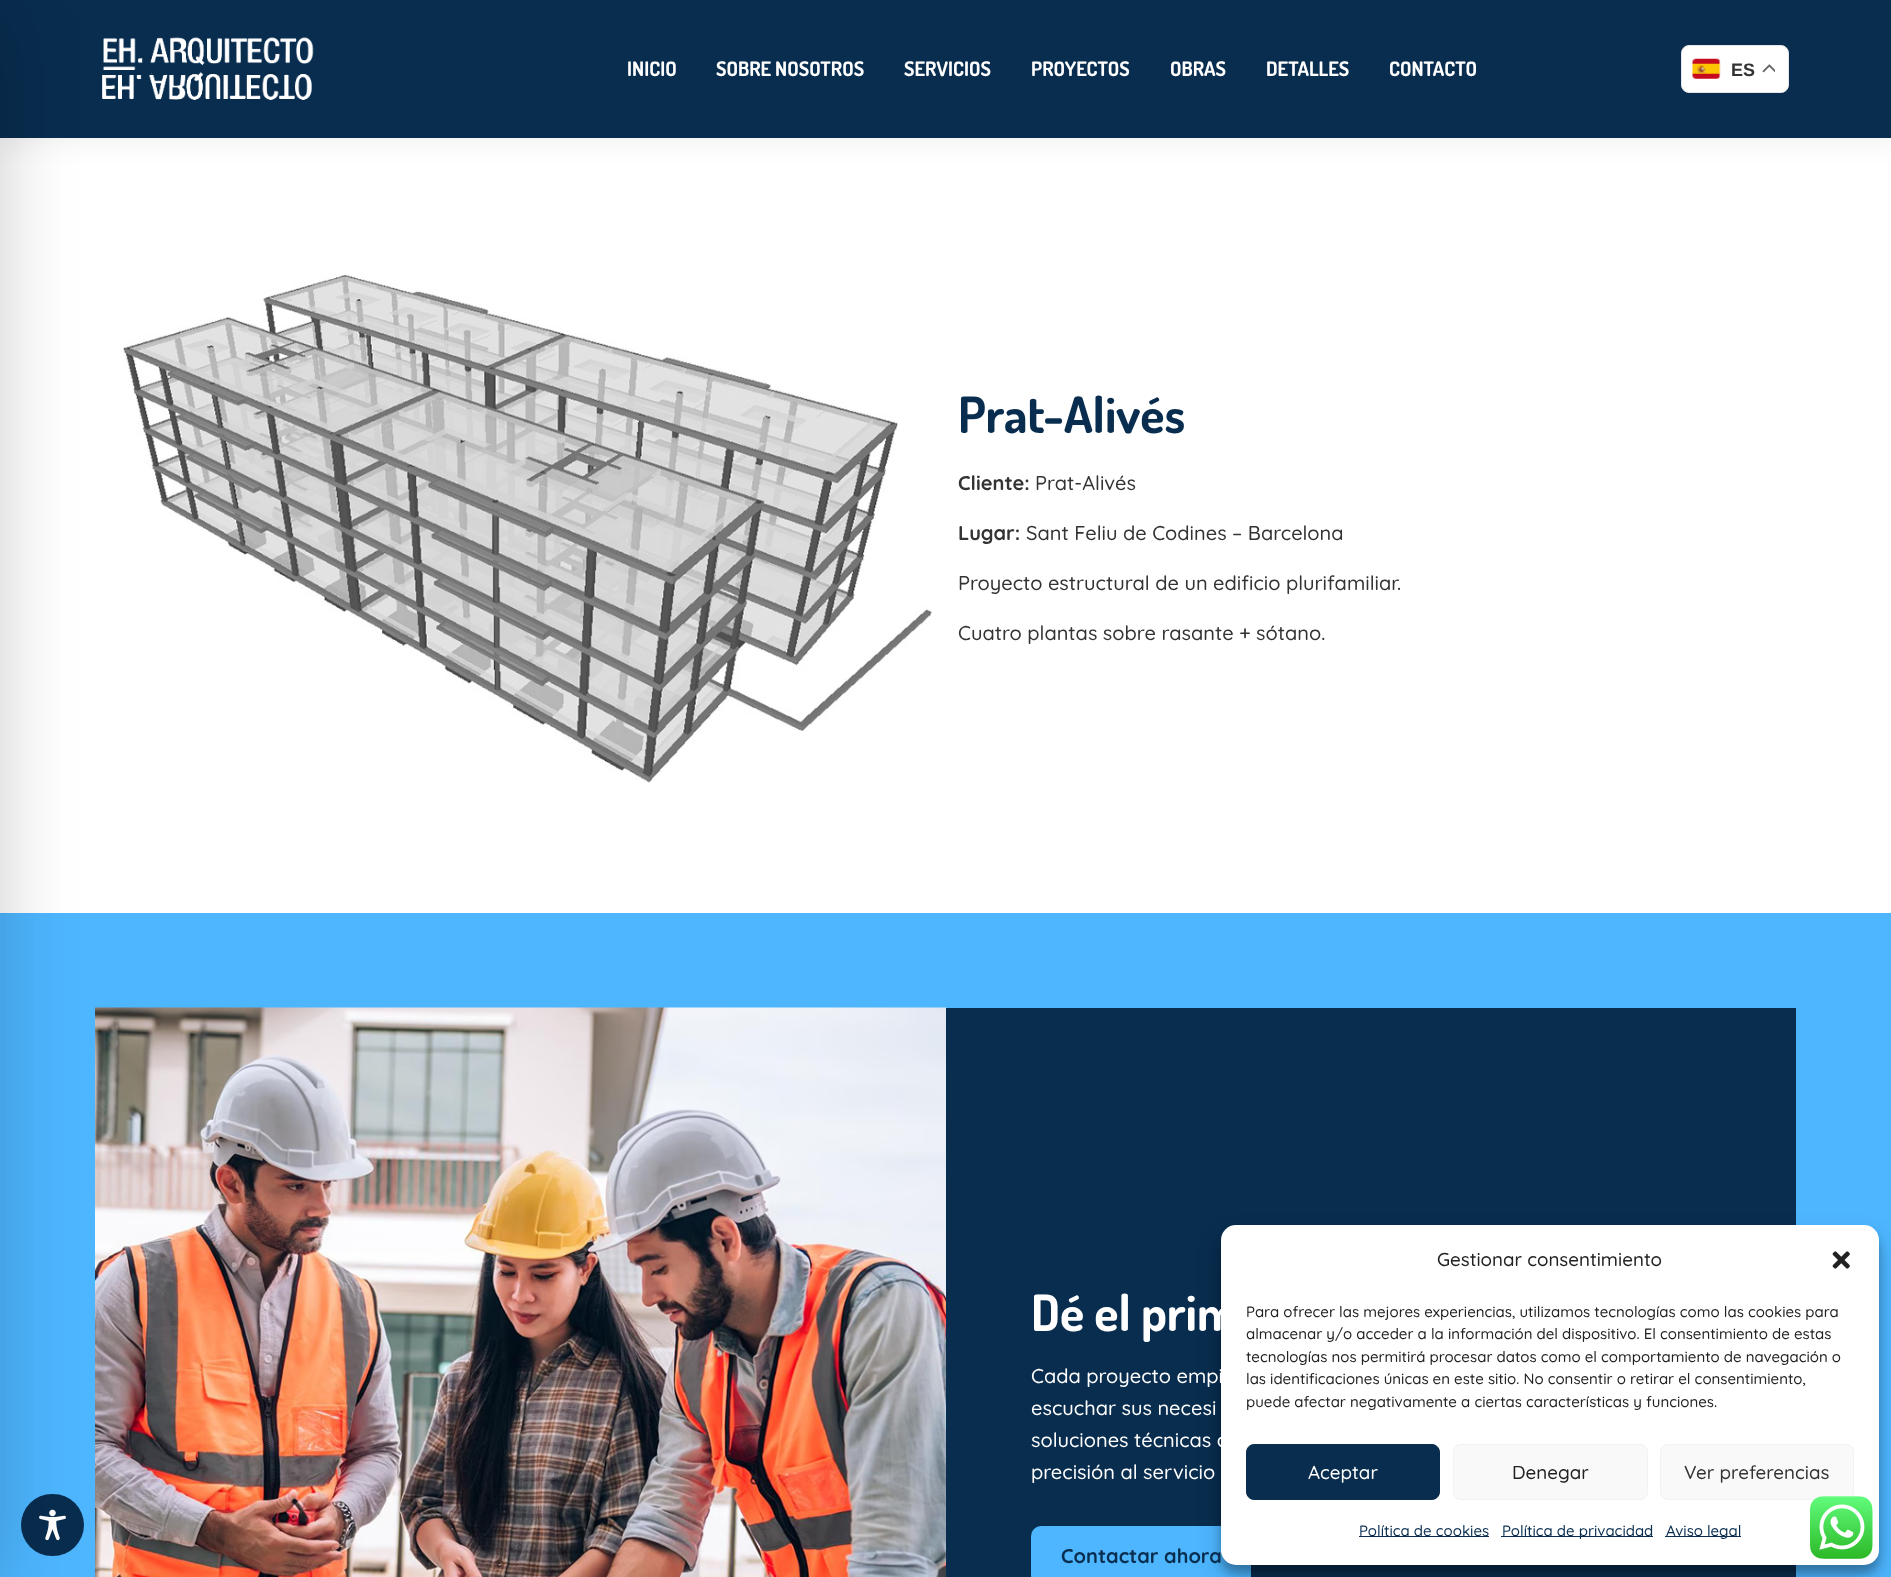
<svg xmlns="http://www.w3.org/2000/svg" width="1891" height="1577">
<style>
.a{font:bold 20px Dosis;fill:#fff}
.b{font:bold 18px Liberation Sans;fill:#333}
.c{font:bold 50px Dosis;fill:#092d4f}
.d{font:bold 20px Quicksand;fill:#333}
.e{font:500 20px Quicksand;fill:#333}
.f{font:bold 50px Dosis;fill:#fff}
.g{font:500 20px Quicksand;fill:#fff}
.h{font:bold 20px Quicksand;fill:#092d4f}
.i{font:500 18.75px Quicksand;fill:#222}
.j{font:500 15px Quicksand;fill:#222}
.k{font:500 18.75px Quicksand;fill:#fff}
.l{font:500 18.75px Quicksand;fill:#333}
.m{font:500 15px Quicksand;fill:#092d4f}
</style>
<rect width="100%" height="100%" fill="#fff"/>
<path fill="#0000000d" filter="blur(12.5px)" d="M-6 -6h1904v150H-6z"/>
<path fill="#092d4f" d="M0 0h1891v138H0z"/>
<image href="1.png" x="102" y="37" width="212" height="63"/>
<path fill="#4db6ff" d="M0 913h1891v664H0z"/>
<rect fill="#092d4f" x="21" y="1494" width="63" height="62" rx="31"/>
<image href="5.png" x="39" y="1509" width="27" height="32"/>
<image href="6.png" x="95" y="1007" width="852" height="570"/>
<path fill="#00000033" filter="blur(37.5px)" d="M-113 13h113v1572H-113z"/>
<rect fill="#fff" stroke="#e5e5e5" x="1681.5" y="45.5" width="107" height="47" rx="7.5"/>
<image href="2.png" x="1692" y="58" width="29" height="21"/>
<image href="3.png" x="1762" y="64" width="13" height="9"/>
<image href="4.png" x="123" y="274" width="809" height="509"/>
<path fill="#092d4f" d="M946 1008h850v569H946z"/>
<rect fill="#4db6ff" x="1031" y="1526" width="220" height="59" rx="10"/>
<rect fill="#0000003b" filter="blur(4px)" x="1221" y="1233" width="658" height="340" rx="15"/>
<rect fill="#00000030" filter="blur(12.5px)" x="1221" y="1238" width="658" height="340" rx="15"/>
<rect fill="#fff" x="1221" y="1225" width="658" height="340" rx="15"/>
<image href="7.png" x="1832" y="1251" width="18" height="18"/>
<rect fill="#092d4f" stroke="#092d4f" x="1246.5" y="1444.5" width="193" height="55" rx="7.5"/>
<rect fill="#f9f9f9" stroke="#f2f2f2" x="1453.5" y="1444.5" width="194" height="55" rx="7.5"/>
<rect fill="#f9f9f9" stroke="#f2f2f2" x="1660.5" y="1444.5" width="193" height="55" rx="7.5"/>
<path fill="#092d4f" d="M1359 1536h130v1H1359z"/>
<path fill="#092d4f" d="M1501 1536h152v1H1501z"/>
<path fill="#092d4f" d="M1665 1536h76v1H1665z"/>
<image href="8.png" x="1810" y="1496" width="63" height="63"/>
<text class="a" x="627" y="76">INICIO</text>
<text class="a" x="716" y="76">SOBRE NOSOTROS</text>
<text class="a" x="904" y="76">SERVICIOS</text>
<text class="a" x="1031" y="76">PROYECTOS</text>
<text class="a" x="1170" y="76">OBRAS</text>
<text class="a" x="1266" y="76">DETALLES</text>
<text class="a" x="1389" y="76">CONTACTO</text>
<text class="b" x="1731" y="76">ES</text>
<text class="c" x="958" y="433">Prat-Alivés</text>
<text class="d" x="958" y="490">Cliente:</text>
<text class="e" x="1035" y="490">Prat-Alivés</text>
<text class="d" x="958" y="540">Lugar:</text>
<text class="e" x="1026" y="540">Sant Feliu de Codines – Barcelona</text>
<text class="e" x="958" y="590">Proyecto estructural de un edificio plurifamiliar.</text>
<text class="e" x="958" y="640">Cuatro plantas sobre rasante + sótano.</text>
<text class="f" x="1031" y="1331">Dé el prim</text>
<text class="g" x="1031" y="1383">Cada proyecto empi</text>
<text class="g" x="1031" y="1415">escuchar sus necesi</text>
<text class="g" x="1031" y="1447">soluciones técnicas c</text>
<text class="g" x="1031" y="1479">precisión al servicio</text>
<text class="h" x="1061" y="1563">Contactar ahora</text>
<text class="i" x="1437" y="1266">Gestionar consentimiento</text>
<text class="j" x="1246" y="1317">Para ofrecer las mejores experiencias, utilizamos tecnologías como las cookies para</text>
<text class="j" x="1246" y="1339">almacenar y/o acceder a la información del dispositivo. El consentimiento de estas</text>
<text class="j" x="1246" y="1362">tecnologías nos permitirá procesar datos como el comportamiento de navegación o</text>
<text class="j" x="1246" y="1384">las identificaciones únicas en este sitio. No consentir o retirar el consentimiento,</text>
<text class="j" x="1246" y="1407">puede afectar negativamente a ciertas características y funciones.</text>
<text class="k" x="1308" y="1479">Aceptar</text>
<text class="i" x="1512" y="1479">Denegar</text>
<text class="l" x="1684" y="1479">Ver preferencias</text>
<text class="m" x="1359" y="1536">Política de cookies</text>
<text class="m" x="1502" y="1536">Política de privacidad</text>
<text class="m" x="1666" y="1536">Aviso legal</text>
</svg>
